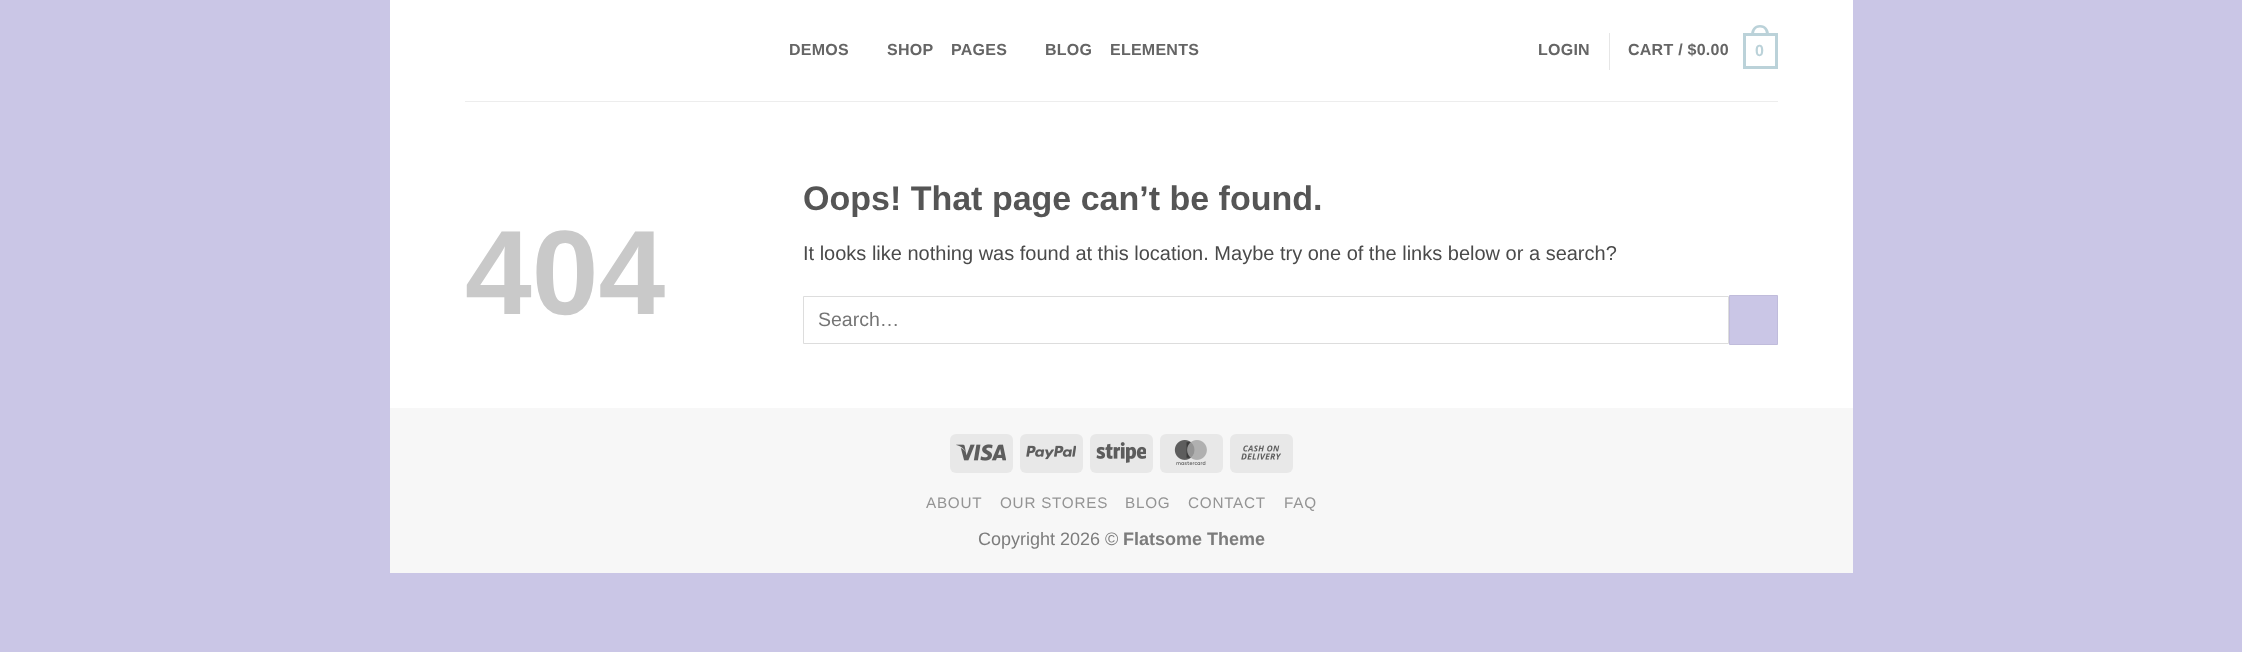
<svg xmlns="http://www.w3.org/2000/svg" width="2242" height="652">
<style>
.a{font:bold 16px Liberation Sans;letter-spacing:0.25px;fill:#656565}
.b{font:bold 16px Liberation Sans;letter-spacing:0.25px;fill:#bbd2d9}
.c{font:bold 120px Liberation Sans;fill:#c9c9c9}
.d{font:bold 34px Liberation Sans;fill:#555}
.e{font:20px Liberation Sans;fill:#4a4a4a}
.f{font:19.5px Liberation Sans;fill:#757575}
.g{font:15.25px Liberation Sans;letter-spacing:0.75px;fill:#949494}
.h{font:18px Liberation Sans;fill:#7c7c7c}
.i{font:bold 18px Liberation Sans;fill:#7c7c7c}
</style>
<rect width="100%" height="100%" fill="#cac6e6"/>
<path fill="#fff" d="M390 0h1463v408H390z"/>
<path fill="#e6e6e6" d="M1609 33h1v37H1609z"/>
<path fill="none" stroke="#bbd2d9" stroke-width="3" d="M1744.5 34.5h32v33H1744.5z"/>
<path fill="#bbd2d9" fill-rule="evenodd" d="M1760 25c6 0 9 4.5 9 10h-18c0-5.5 3-10 9-10zm0 2.5c4.5 0 6 3.5 6 7.5h-12c0-4 1.5-7.5 6-7.5z"/>
<path fill="#ededed" d="M465 101h1313v1H465z"/>
<path fill="none" stroke="#ddd" d="M803.5 296.5h925v47H803.5z"/>
<path fill="#cac6e6" stroke="#c0bcdb" d="M1729.5 295.5h48v49H1729.5z"/>
<path fill="#f7f7f7" d="M390 408h1463v165H390z"/>
<rect fill="#e8e8e8" x="950" y="434" width="63" height="39" rx="6"/>
<image href="1.png" x="956" y="444" width="50" height="17"/>
<rect fill="#e8e8e8" x="1020" y="434" width="63" height="39" rx="6"/>
<image href="2.png" x="1026" y="445" width="50" height="15"/>
<rect fill="#e8e8e8" x="1090" y="434" width="63" height="39" rx="6"/>
<image href="3.png" x="1096" y="442" width="50" height="21"/>
<rect fill="#e8e8e8" x="1160" y="434" width="63" height="39" rx="6"/>
<image href="4.png" x="1174" y="440" width="33" height="25"/>
<rect fill="#e8e8e8" x="1230" y="434" width="63" height="39" rx="6"/>
<image href="5.png" x="1241" y="445" width="40" height="15"/>
<text class="a" x="789" y="55">DEMOS</text>
<text class="a" x="887" y="55">SHOP</text>
<text class="a" x="951" y="55">PAGES</text>
<text class="a" x="1045" y="55">BLOG</text>
<text class="a" x="1110" y="55">ELEMENTS</text>
<text class="a" x="1538" y="55">LOGIN</text>
<text class="a" x="1628" y="55">CART / $0.00</text>
<text class="b" x="1755" y="56">0</text>
<text class="c" x="465" y="314">404</text>
<text class="d" x="803" y="210">Oops! That page can’t be found.</text>
<text class="e" x="803" y="260">It looks like nothing was found at this location. Maybe try one of the links below or a search?</text>
<text class="f" x="818" y="326">Search…</text>
<text class="g" x="926" y="508">ABOUT</text>
<text class="g" x="1000" y="508">OUR STORES</text>
<text class="g" x="1125" y="508">BLOG</text>
<text class="g" x="1188" y="508">CONTACT</text>
<text class="g" x="1284" y="508">FAQ</text>
<text class="h" x="978" y="545">Copyright 2026 ©</text>
<text class="i" x="1123" y="545">Flatsome Theme</text>
</svg>
